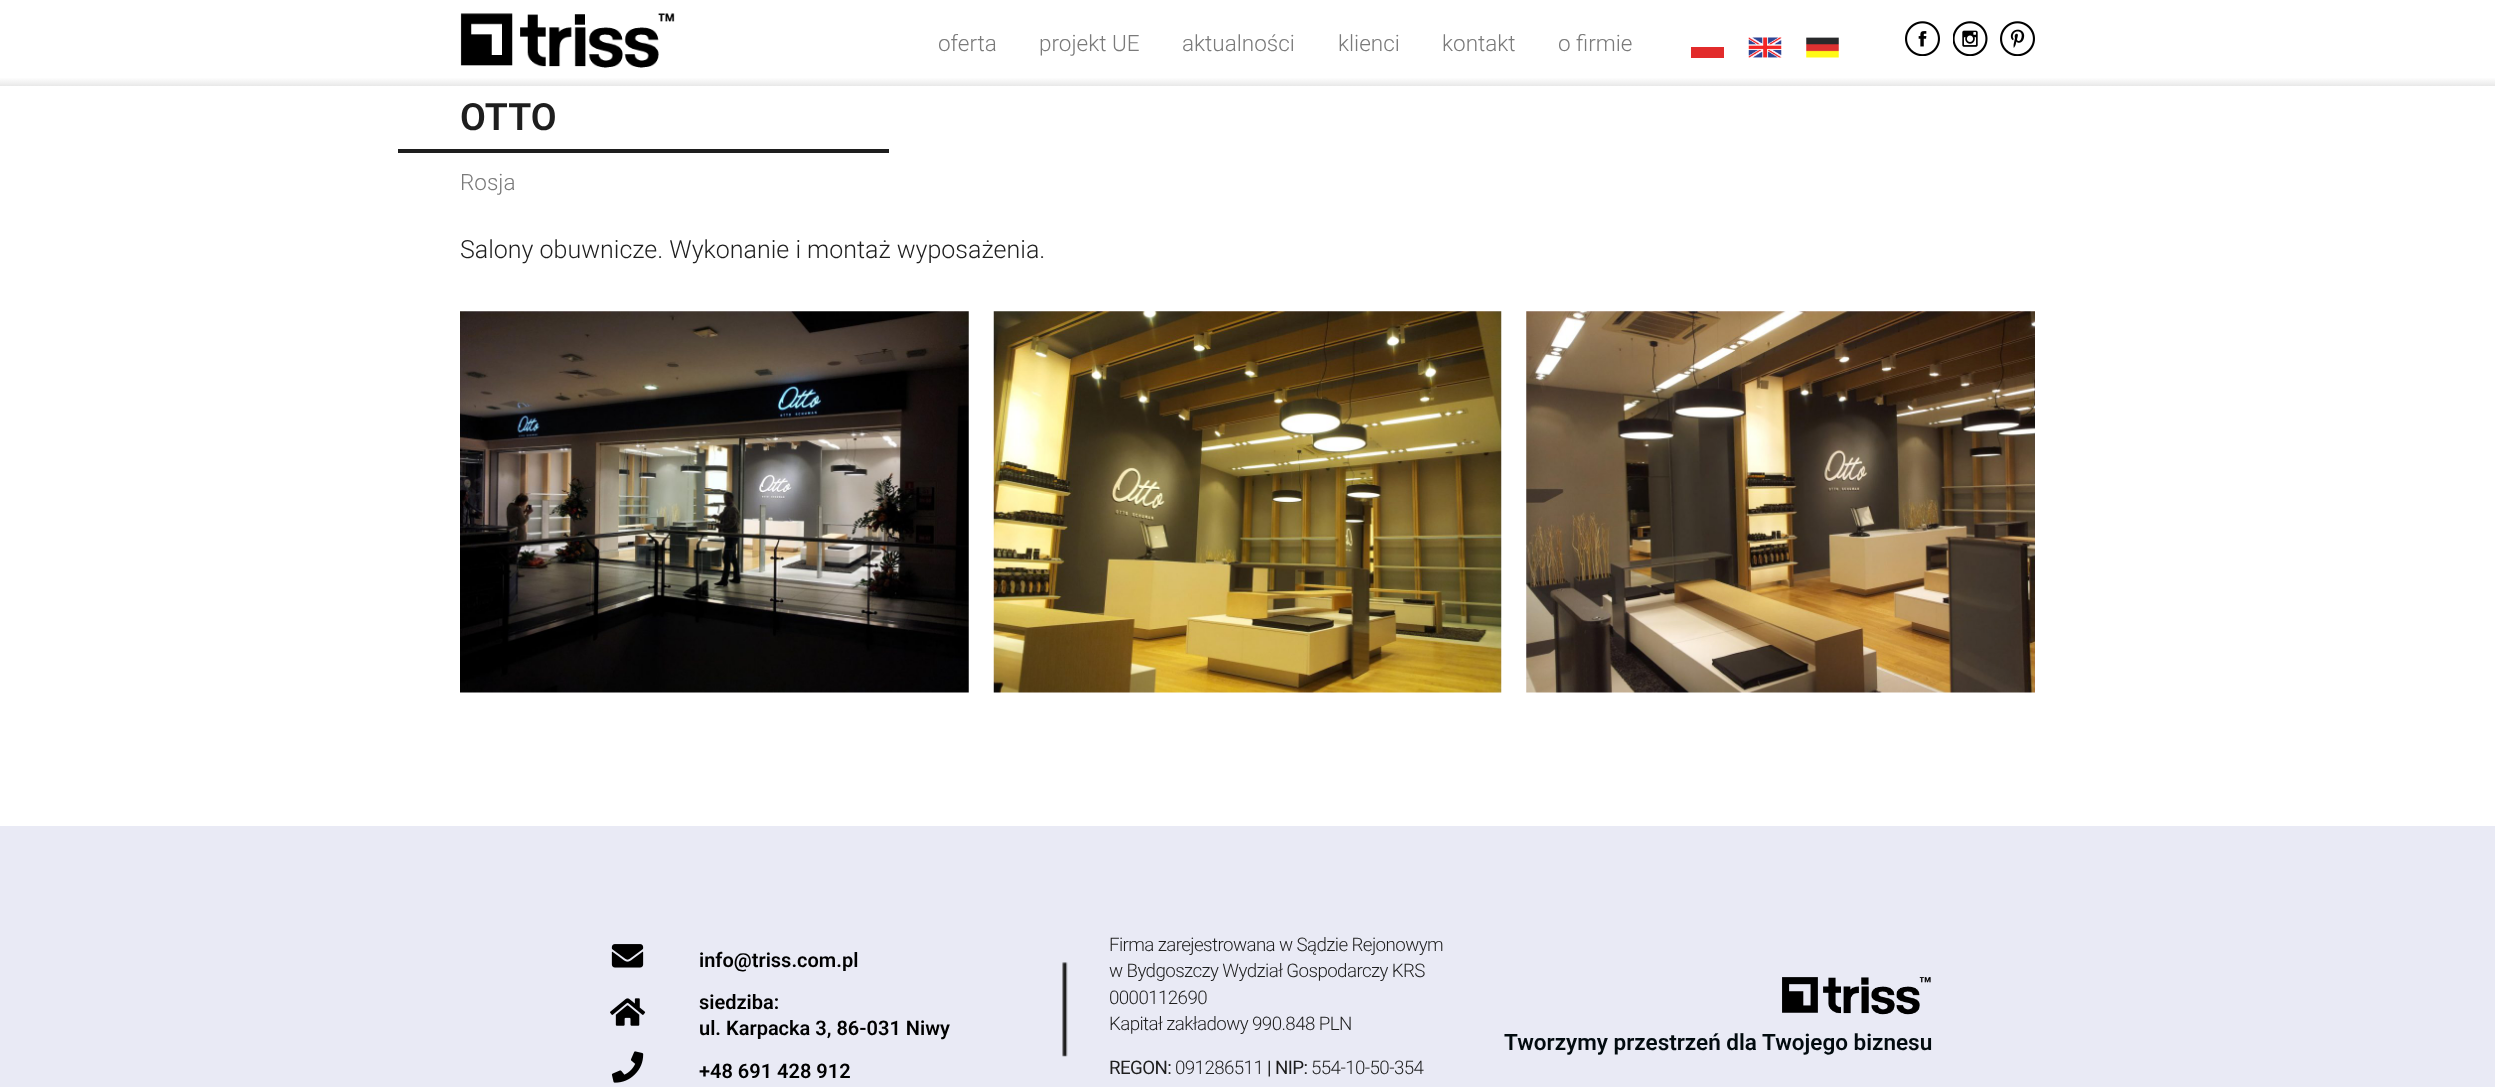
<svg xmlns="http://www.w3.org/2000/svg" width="2495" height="1087">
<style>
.a{font:300 22.5px Roboto;fill:#7a7a7a}
.b{font:600 37.5px Roboto;fill:#1e1e1e}
.c{font:300 25px Roboto;fill:#1e1e1e}
.d{font:600 20px Roboto;fill:#000}
.e{font:300 18.75px Roboto;letter-spacing:-0.6px;fill:#1e1e1e}
.f{font:18.75px Roboto;letter-spacing:-0.6px;fill:#1e1e1e}
.g{font:600 22.5px Roboto;fill:#020b0f}
</style>
<defs>
<linearGradient id="g1" gradientUnits="userSpaceOnUse" x1="1248" y1="0" x2="1248" y2="86"><stop offset="0.9" stop-color="#fff"/><stop offset="1" stop-color="#e8e8e8"/></linearGradient>
</defs>
<rect width="100%" height="100%" fill="#fff"/>
<path fill="url(#g1)" d="M0 78h2495v8H0z"/>
<image href="1.png" x="460" y="13" width="215" height="55"/>
<path fill="#e22b2b" d="M1691 47h33v11H1691z"/>
<image href="2.png" x="1748" y="37" width="34" height="21"/>
<image href="3.png" x="1806" y="37" width="33" height="21"/>
<image href="4.png" x="1905" y="21" width="35" height="35"/>
<image href="5.png" x="1953" y="21" width="35" height="35"/>
<image href="6.png" x="2000" y="21" width="35" height="35"/>
<path fill="#1e1e1e" d="M398 149h491v4H398z"/>
<image href="7.png" x="460" y="311" width="509" height="382"/>
<image href="8.png" x="993" y="311" width="509" height="382"/>
<image href="9.png" x="1526" y="311" width="509" height="382"/>
<path fill="#e9eaf5" d="M0 826h2495v261H0z"/>
<image href="10.png" x="611" y="944" width="33" height="24"/>
<image href="11.png" x="610" y="998" width="36" height="28"/>
<image href="12.png" x="611" y="1051" width="33" height="32"/>
<image href="13.png" x="1062" y="962" width="6" height="95"/>
<image href="14.png" x="1782" y="977" width="149" height="38"/>
<text class="a" x="938" y="51">oferta</text>
<text class="a" x="1039" y="51">projekt UE</text>
<text class="a" x="1182" y="51">aktualności</text>
<text class="a" x="1338" y="51">klienci</text>
<text class="a" x="1442" y="51">kontakt</text>
<text class="a" x="1558" y="51">o firmie</text>
<text class="b" x="460" y="130">OTTO</text>
<text class="a" x="460" y="190">Rosja</text>
<text class="c" x="460" y="258">Salony obuwnicze. Wykonanie i montaż wyposażenia.</text>
<text class="d" x="699" y="967">info@triss.com.pl</text>
<text class="d" x="699" y="1009">siedziba:</text>
<text class="d" x="699" y="1035">ul. Karpacka 3, 86-031 Niwy</text>
<text class="d" x="699" y="1078">+48 691 428 912</text>
<text class="e" x="1109" y="951">Firma zarejestrowana w Sądzie Rejonowym</text>
<text class="e" x="1109" y="977">w Bydgoszczy Wydział Gospodarczy KRS</text>
<text class="e" x="1109" y="1004">0000112690</text>
<text class="e" x="1109" y="1030">Kapitał zakładowy 990.848 PLN</text>
<text class="f" x="1109" y="1074">REGON:</text>
<text class="e" x="1175" y="1074">091286511</text>
<text class="f" x="1267" y="1074">| NIP:</text>
<text class="e" x="1311" y="1074">554-10-50-354</text>
<text class="g" x="1504" y="1050">Tworzymy przestrzeń dla Twojego biznesu</text>
</svg>
